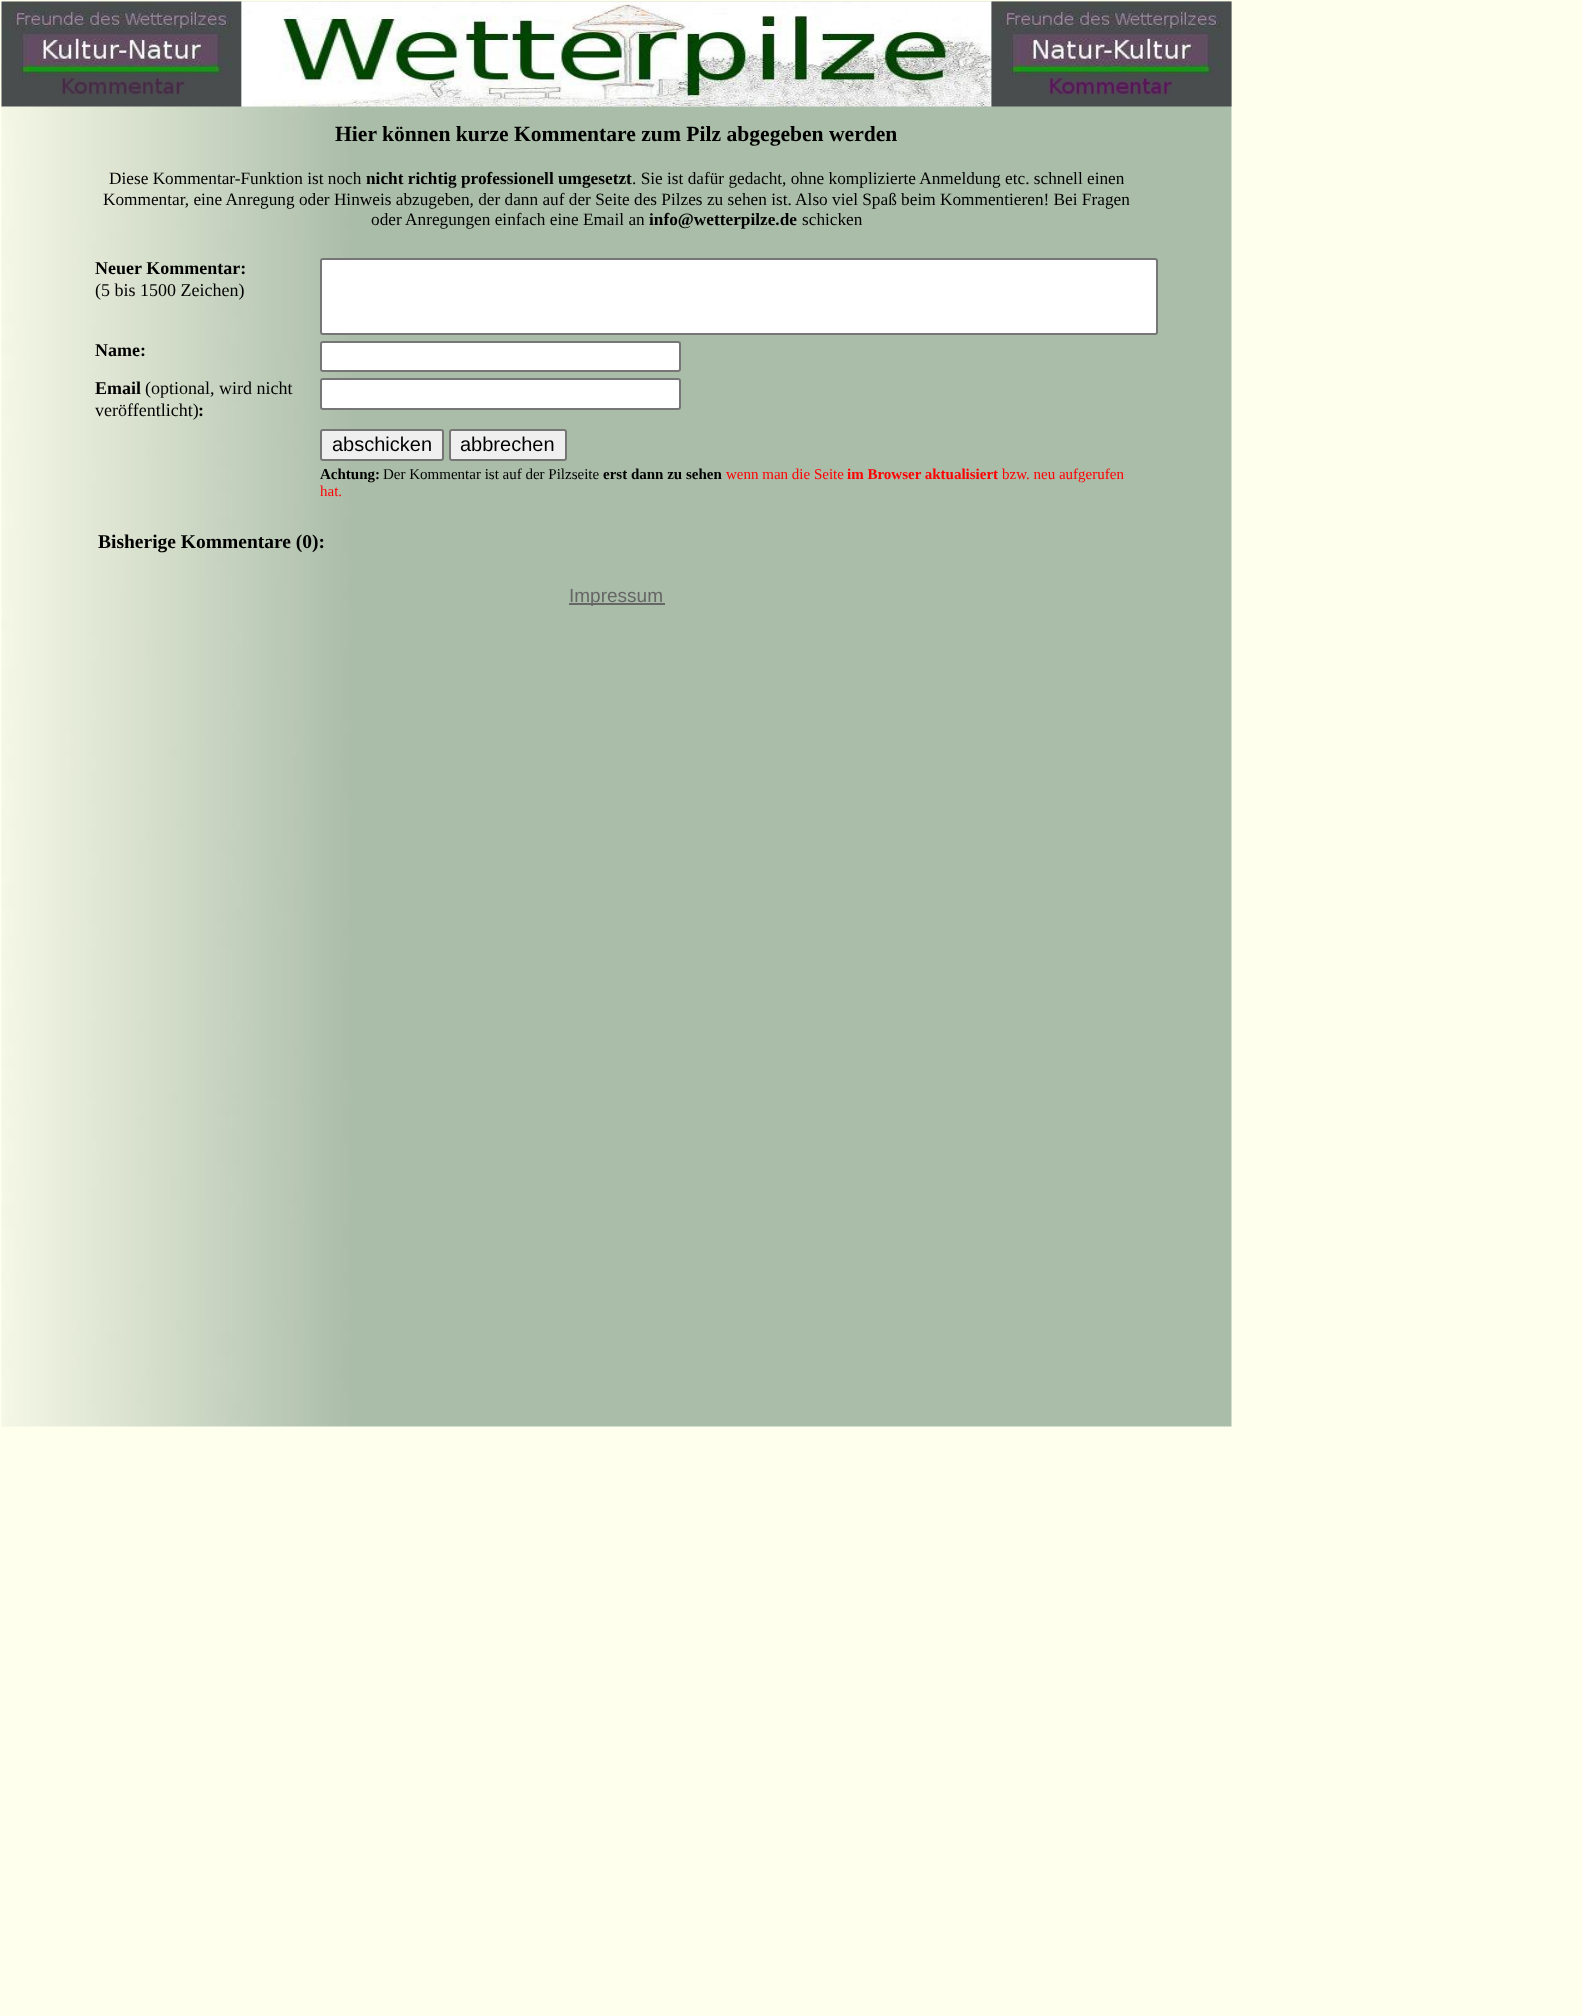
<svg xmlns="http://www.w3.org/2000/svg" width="1582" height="2016">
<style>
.a{font:bold 21.6px Liberation Serif;fill:#000}
.b{font:17.28px Liberation Serif;fill:#000}
.c{font:bold 17.28px Liberation Serif;fill:#000}
.d{font:bold 18px Liberation Serif;fill:#000}
.e{font:18px Liberation Serif;fill:#000}
.f{font:20px Liberation Sans;fill:#000}
.g{font:bold 15px Liberation Serif;fill:#000}
.h{font:15px Liberation Serif;fill:#000}
.i{font:15px Liberation Serif;fill:#f00}
.j{font:bold 15px Liberation Serif;fill:#f00}
.k{font:bold 19.5px Liberation Serif;fill:#000}
.l{font:19px Liberation Sans;fill:#666}
</style>
<rect width="100%" height="100%" fill="#ffe"/>
<image href="1.png" x="1" y="1" width="1231" height="1426"/>
<image href="2.png" x="1" y="1" width="241" height="106"/>
<image href="3.png" x="241" y="1" width="751" height="106"/>
<image href="4.png" x="991" y="1" width="241" height="106"/>
<rect fill="#fff" stroke="#767676" stroke-width="2" x="321" y="259" width="836" height="75" rx="2"/>
<rect fill="#fff" stroke="#767676" stroke-width="2" x="321" y="342" width="359" height="29" rx="2"/>
<rect fill="#fff" stroke="#767676" stroke-width="2" x="321" y="379" width="359" height="30" rx="2"/>
<rect fill="#efefef" stroke="#767676" stroke-width="2" x="321" y="430" width="122" height="30" rx="2"/>
<rect fill="#efefef" stroke="#767676" stroke-width="2" x="450" y="430" width="116" height="30" rx="2"/>
<path fill="#666" d="M569 603h96v2H569z"/>
<text class="a" x="335" y="141">Hier können kurze Kommentare zum Pilz abgegeben werden</text>
<text class="b" x="109" y="184">Diese Kommentar-Funktion ist noch</text>
<text class="c" x="366" y="184">nicht richtig professionell umgesetzt</text>
<text class="b" x="632" y="184">. Sie ist dafür gedacht, ohne komplizierte Anmeldung etc. schnell einen</text>
<text class="b" x="103" y="205">Kommentar, eine Anregung oder Hinweis abzugeben, der dann auf der Seite des Pilzes zu sehen ist. Also viel Spaß beim Kommentieren! Bei Fragen</text>
<text class="b" x="371" y="225">oder Anregungen einfach eine Email an</text>
<text class="c" x="649" y="225">info@wetterpilze.de</text>
<text class="b" x="802" y="225">schicken</text>
<text class="d" x="95" y="274">Neuer Kommentar:</text>
<text class="e" x="95" y="296">(5 bis 1500 Zeichen)</text>
<text class="d" x="95" y="356">Name:</text>
<text class="d" x="95" y="394">Email</text>
<text class="e" x="145" y="394">(optional, wird nicht</text>
<text class="e" x="95" y="416">veröffentlicht)</text>
<text class="d" x="198" y="416">:</text>
<text class="f" x="332" y="451">abschicken</text>
<text class="f" x="460" y="451">abbrechen</text>
<text class="g" x="320" y="479">Achtung:</text>
<text class="h" x="383" y="479">Der Kommentar ist auf der Pilzseite</text>
<text class="g" x="603" y="479">erst dann zu sehen</text>
<text class="i" x="726" y="479">wenn man die Seite</text>
<text class="j" x="847" y="479">im Browser aktualisiert</text>
<text class="i" x="1002" y="479">bzw. neu aufgerufen</text>
<text class="i" x="320" y="496">hat.</text>
<text class="k" x="98" y="548">Bisherige Kommentare (0):</text>
<text class="l" x="569" y="602">Impressum</text>
</svg>
